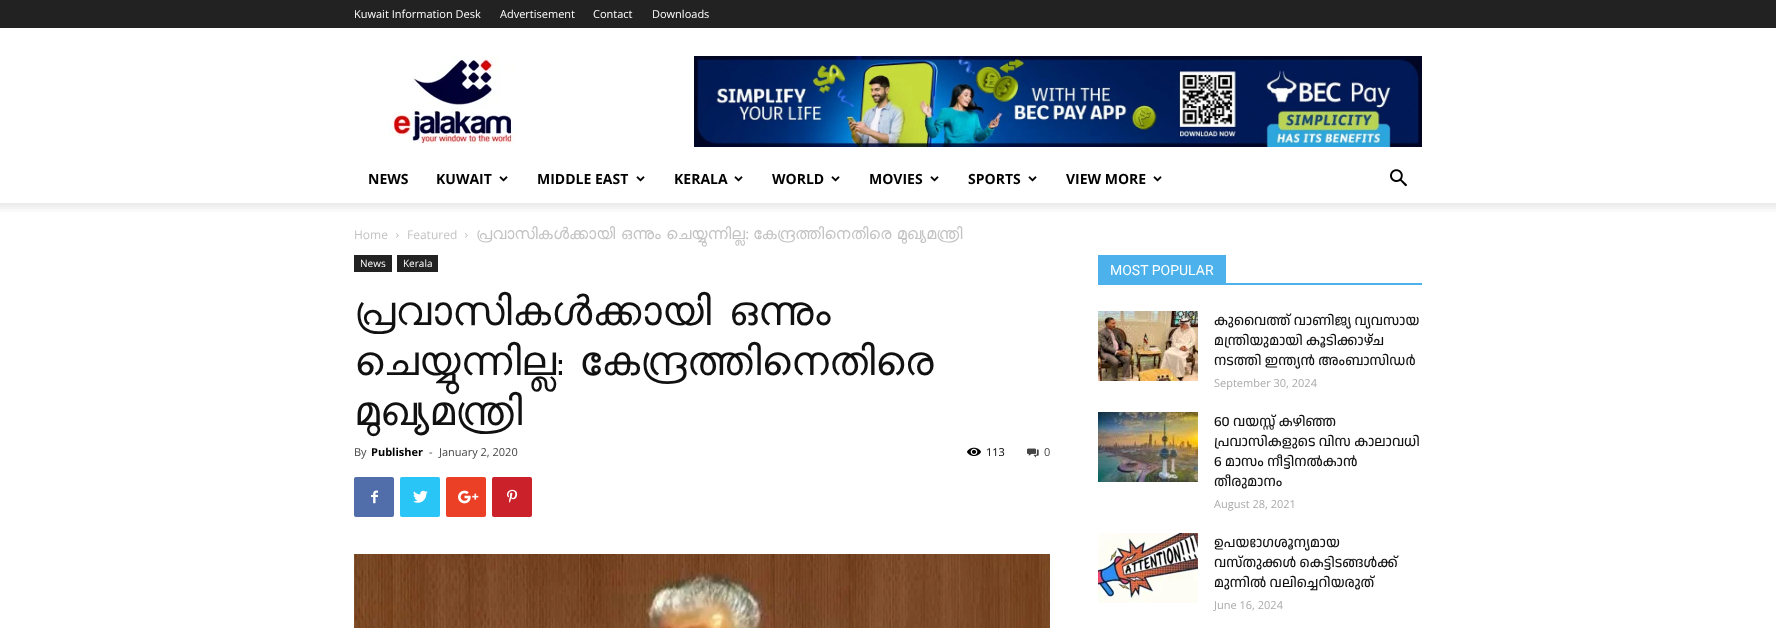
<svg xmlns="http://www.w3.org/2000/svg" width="1776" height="628">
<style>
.a{font:11px Open Sans;fill:#fff}
.b{font:bold 14px Open Sans;fill:#000}
.c{font:12px Open Sans;fill:#c3c3c3}
.d{font:16px FreeSans;fill:#c3c3c3}
.e{font:16px Liberation Serif;fill:#c3c3c3}
.f{font:10px Open Sans;fill:#fff}
.g{font:41px FreeSans;fill:#111}
.h{font:41px Anaheim;fill:#111}
.i{font:11px Open Sans;fill:#444}
.j{font:bold 11px Open Sans;fill:#000}
.k{font:11px Open Sans;fill:#000}
.l{font:14px Roboto;fill:#fff}
.m{font:500 14px Anek Malayalam;fill:#111}
.n{font:11px Open Sans;fill:#aaa}
</style>
<rect width="100%" height="100%" fill="#fff"/>
<path fill="#222" d="M0 0h1776v28H0z"/>
<image href="1.png" x="388" y="56" width="128" height="89"/>
<image href="2.png" x="694" y="56" width="728" height="91"/>
<image href="3.png" x="499" y="176" width="9" height="6"/>
<image href="3.png" x="636" y="176" width="9" height="6"/>
<image href="3.png" x="734" y="176" width="9" height="6"/>
<image href="3.png" x="831" y="176" width="9" height="6"/>
<image href="3.png" x="930" y="176" width="9" height="6"/>
<image href="3.png" x="1028" y="176" width="9" height="6"/>
<image href="3.png" x="1153" y="176" width="9" height="6"/>
<image href="4.png" x="1390" y="169" width="17" height="18"/>
<image href="5.png" x="0" y="203" width="1776" height="9"/>
<image href="6.png" x="396" y="233" width="3" height="5"/>
<image href="6.png" x="465" y="233" width="3" height="5"/>
<path fill="#222" d="M354 255h38v17H354z"/>
<path fill="#222" d="M397 255h41v17H397z"/>
<image href="7.png" x="967" y="447" width="14" height="9"/>
<image href="8.png" x="1027" y="448" width="12" height="10"/>
<rect fill="#516eab" x="354" y="477" width="40" height="40" rx="2"/>
<image href="9.png" x="371" y="490" width="7" height="14"/>
<rect fill="#29c5f6" x="400" y="477" width="40" height="40" rx="2"/>
<image href="10.png" x="413" y="490" width="15" height="13"/>
<rect fill="#eb4026" x="446" y="477" width="40" height="40" rx="2"/>
<image href="11.png" x="458" y="490" width="21" height="14"/>
<rect fill="#ca212a" x="492" y="477" width="40" height="40" rx="2"/>
<image href="12.png" x="507" y="489" width="11" height="14"/>
<image href="13.png" x="354" y="554" width="696" height="74"/>
<path fill="#4db2ec" d="M1098 283h324v2H1098z"/>
<path fill="#4db2ec" d="M1098 255h128v28H1098z"/>
<image href="14.png" x="1098" y="311" width="100" height="70"/>
<image href="15.png" x="1098" y="412" width="100" height="70"/>
<image href="16.png" x="1098" y="533" width="100" height="70"/>
<text class="a" x="354" y="18">Kuwait Information Desk</text>
<text class="a" x="500" y="18">Advertisement</text>
<text class="a" x="593" y="18">Contact</text>
<text class="a" x="652" y="18">Downloads</text>
<text class="b" x="368" y="184">NEWS</text>
<text class="b" x="436" y="184">KUWAIT</text>
<text class="b" x="537" y="184">MIDDLE EAST</text>
<text class="b" x="674" y="184">KERALA</text>
<text class="b" x="772" y="184">WORLD</text>
<text class="b" x="869" y="184">MOVIES</text>
<text class="b" x="968" y="184">SPORTS</text>
<text class="b" x="1066" y="184">VIEW MORE</text>
<text class="c" x="354" y="239">Home</text>
<text class="c" x="407" y="239">Featured</text>
<text class="d" x="476" y="239" word-spacing="-1">പ്രവാസികൾക്കായി ഒന്നും ചെയ്യുന്നില്ല</text>
<text class="e" x="745" y="239">:</text>
<text class="d" x="753" y="239" word-spacing="-1">കേന്ദ്രത്തിനെതിരെ മുഖ്യമന്ത്രി</text>
<text class="f" x="360" y="267">News</text>
<text class="f" x="403" y="267">Kerala</text>
<text class="g" x="354" y="325" word-spacing="1">പ്രവാസികൾക്കായി ഒന്നും</text>
<text class="g" x="354" y="375">ചെയ്യുന്നില്ല</text>
<text class="h" x="556" y="375">:</text>
<text class="g" x="579" y="375">കേന്ദ്രത്തിനെതിരെ</text>
<text class="g" x="354" y="425">മുഖ്യമന്ത്രി</text>
<text class="i" x="354" y="456">By</text>
<text class="j" x="371" y="456">Publisher</text>
<text class="i" x="429" y="456">-</text>
<text class="i" x="439" y="456">January 2, 2020</text>
<text class="k" x="986" y="456">113</text>
<text class="i" x="1044" y="456">0</text>
<text class="l" x="1110" y="275">MOST POPULAR</text>
<text class="m" x="1214" y="325">കുവൈത്ത് വാണിജ്യ വ്യവസായ</text>
<text class="m" x="1214" y="345">മന്ത്രിയുമായി കൂടിക്കാഴ്ച</text>
<text class="m" x="1214" y="365">നടത്തി ഇന്ത്യൻ അംബാസിഡർ</text>
<text class="n" x="1214" y="387">September 30, 2024</text>
<text class="m" x="1214" y="426">60 വയസ്സ് കഴിഞ്ഞ</text>
<text class="m" x="1214" y="446">പ്രവാസികളുടെ വിസ കാലാവധി</text>
<text class="m" x="1214" y="466">6 മാസം നീട്ടിനല്‍കാന്‍</text>
<text class="m" x="1214" y="486">തീരുമാനം</text>
<text class="n" x="1214" y="508">August 28, 2021</text>
<text class="m" x="1214" y="547">ഉപയോഗശൂന്യമായ</text>
<text class="m" x="1214" y="567">വസ്തുക്കൾ കെട്ടിടങ്ങൾക്ക്</text>
<text class="m" x="1214" y="587">മുന്നിൽ വലിച്ചെറിയരുത്</text>
<text class="n" x="1214" y="609">June 16, 2024</text>
</svg>
